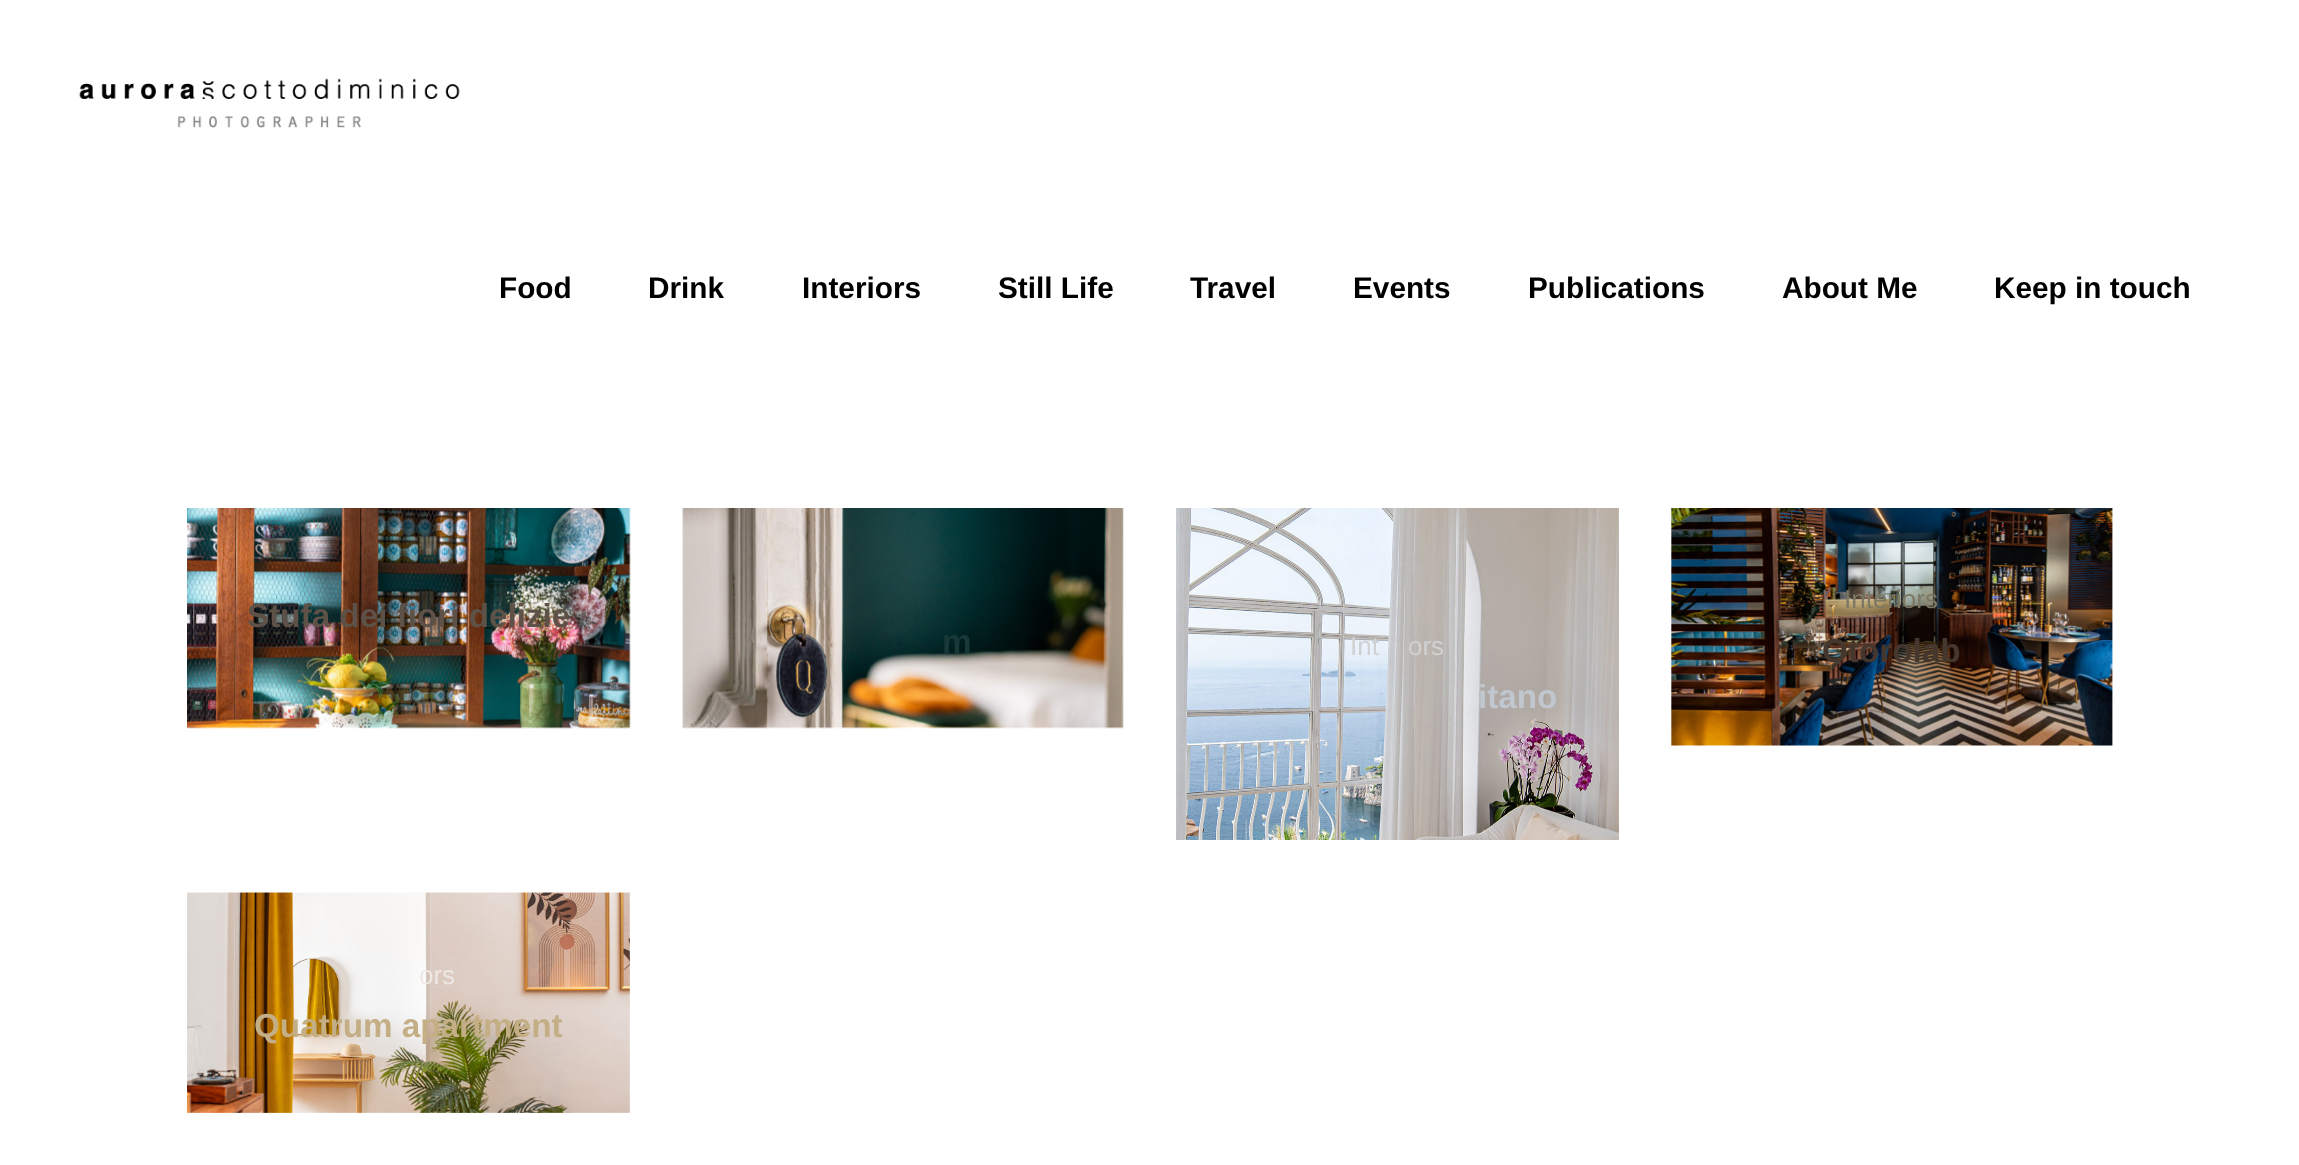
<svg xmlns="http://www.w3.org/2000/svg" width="2299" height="1165">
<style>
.a{font:bold 29.75px Liberation Sans;fill:#000}
.b{font:bold 33.25px Liberation Sans;fill:#5e5147}
.c{font:26px Liberation Sans;fill:#7d7864}
.d{font:bold 33.25px Liberation Sans;fill:#45372e}
.e{font:bold 33.25px Liberation Sans;fill:#193838}
.f{font:26px Liberation Sans;fill:#cfd1d2}
.g{font:bold 33.25px Liberation Sans;fill:#c1c7ce}
.h{font:26px Liberation Sans;fill:#eee8e5}
.i{font:bold 33.25px Liberation Sans;fill:#c4ae86}
</style>
<rect width="100%" height="100%" fill="#fff"/>
<image href="1.png" x="79" y="78" width="381" height="50"/>
<image href="2.png" x="187" y="508" width="444" height="221"/>
<image href="3.png" x="1671" y="508" width="442" height="238"/>
<image href="4.png" x="682" y="508" width="442" height="221"/>
<image href="5.png" x="1176" y="508" width="443" height="332"/>
<image href="6.png" x="187" y="892" width="443" height="221"/>
<text class="a" x="499" y="298">Food</text>
<text class="a" x="648" y="298">Drink</text>
<text class="a" x="802" y="298">Interiors</text>
<text class="a" x="998" y="298">Still Life</text>
<text class="a" x="1190" y="298">Travel</text>
<text class="a" x="1353" y="298">Events</text>
<text class="a" x="1528" y="298">Publications</text>
<text class="a" x="1782" y="298">About Me</text>
<text class="a" x="1994" y="298">Keep in touch</text>
<text class="b" x="247" y="627">Stufa dei fiori delizie</text>
<text class="c" x="1844" y="608">Interiors</text>
<text class="d" x="1822" y="662">Otorolab</text>
<text class="e" x="942" y="653">m</text>
<text class="f" x="1350" y="655">Int</text>
<text class="f" x="1408" y="655">ors</text>
<text class="g" x="1478" y="708">itano</text>
<text class="h" x="419" y="984">ors</text>
<text class="i" x="254" y="1037">Quatrum apartment</text>
</svg>
